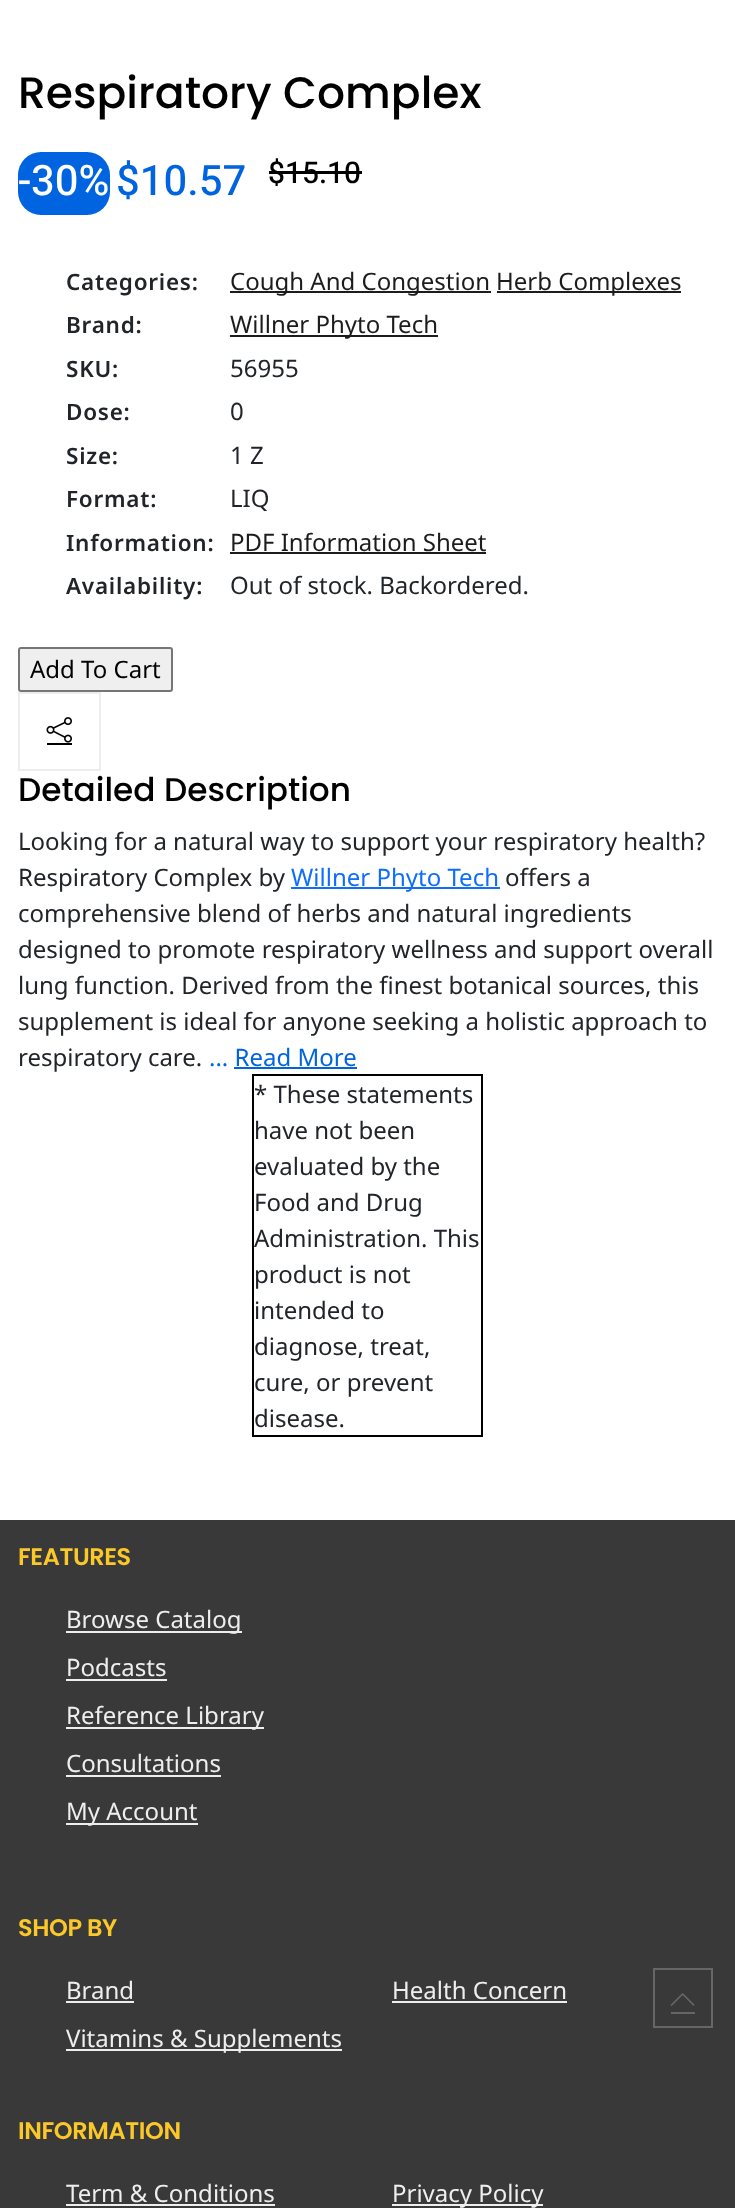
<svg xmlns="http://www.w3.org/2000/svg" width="735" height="2208">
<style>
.a{font:500 44px Poppins;fill:#000}
.b{font:500 42px Heebo;fill:#fff}
.c{font:500 42px Heebo;fill:#0064e0}
.d{font:500 30px Heebo;fill:#000}
.e{font:600 22.5px Noto Sans;letter-spacing:0.75px;fill:#212529}
.f{font:24px Noto Sans;fill:#1c1c1c}
.g{font:24px Noto Sans;fill:#212529}
.h{font:24px Noto Sans;fill:#000}
.i{font:500 32.75px Poppins;fill:#000}
.j{font:24px Noto Sans;fill:#0d6efd}
.k{font:24px Noto Sans;fill:#0064e0}
.l{font:600 24px Poppins;letter-spacing:-0.4px;fill:#fbc82a}
.m{font:24px Noto Sans;fill:#eee}
</style>
<rect width="100%" height="100%" fill="#fff"/>
<rect fill="#0064e0" x="18" y="152" width="92" height="63" rx="23"/>
<path fill="#000" d="M269 171h93v3H269z"/>
<path fill="#1c1c1c" d="M230 291h261v2H230z"/>
<path fill="#1c1c1c" d="M497 291h184v2H497z"/>
<path fill="#1c1c1c" d="M230 335h208v2H230z"/>
<path fill="#1c1c1c" d="M230 552h256v2H230z"/>
<rect fill="#efefef" stroke="#767676" stroke-width="2" x="19" y="648" width="153" height="43" rx="2"/>
<path fill="none" stroke="#ededed" stroke-width="2" d="M19 693h81v77H19z"/>
<image href="1.png" x="46" y="717" width="26" height="26"/>
<path fill="#000" d="M47 743h25v2H47z"/>
<path fill="#0d6efd" d="M291 887h209v2H291z"/>
<path fill="#0064e0" d="M234 1067h123v2H234z"/>
<path fill="none" stroke="#000" stroke-width="2" d="M253 1075h229v361H253z"/>
<path fill="#393939" d="M0 1520h735v688H0z"/>
<path fill="#eee" d="M66 1631h176v2H66z"/>
<path fill="#eee" d="M66 1679h101v2H66z"/>
<path fill="#eee" d="M66 1727h198v2H66z"/>
<path fill="#eee" d="M66 1775h155v2H66z"/>
<path fill="#eee" d="M66 1823h132v2H66z"/>
<path fill="#eee" d="M66 2001h68v2H66z"/>
<path fill="#eee" d="M392 2001h175v2H392z"/>
<path fill="#eee" d="M66 2049h276v2H66z"/>
<path fill="#eee" d="M66 2204h209v2H66z"/>
<path fill="#eee" d="M392 2204h151v2H392z"/>
<path fill="none" stroke="#666" stroke-width="2" d="M654 1969h58v58H654z"/>
<image href="2.png" x="670" y="1993" width="25" height="13"/>
<path fill="#666" d="M671 2012h24v2H671z"/>
<text class="a" x="18" y="108">Respiratory Complex</text>
<text class="b" x="18" y="195">-30%</text>
<text class="c" x="116" y="195">$10.57</text>
<text class="d" x="268" y="183">$15.10</text>
<text class="e" x="66" y="290">Categories:</text>
<text class="f" x="230" y="290">Cough And Congestion</text>
<text class="f" x="496" y="290">Herb Complexes</text>
<text class="e" x="66" y="333">Brand:</text>
<text class="f" x="230" y="333">Willner Phyto Tech</text>
<text class="e" x="66" y="377">SKU:</text>
<text class="g" x="230" y="377">56955</text>
<text class="e" x="66" y="420">Dose:</text>
<text class="g" x="230" y="420">0</text>
<text class="e" x="66" y="464">Size:</text>
<text class="g" x="230" y="464">1 Z</text>
<text class="e" x="66" y="507">Format:</text>
<text class="g" x="230" y="507">LIQ</text>
<text class="e" x="66" y="551">Information:</text>
<text class="f" x="230" y="551">PDF Information Sheet</text>
<text class="e" x="66" y="594">Availability:</text>
<text class="g" x="230" y="594">Out of stock. Backordered.</text>
<text class="h" x="30" y="678">Add To Cart</text>
<text class="i" x="18" y="801">Detailed Description</text>
<text class="g" x="18" y="850">Looking for a natural way to support your respiratory health?</text>
<text class="g" x="18" y="886">Respiratory Complex by</text>
<text class="j" x="291" y="886">Willner Phyto Tech</text>
<text class="g" x="505" y="886">offers a</text>
<text class="g" x="18" y="922">comprehensive blend of herbs and natural ingredients</text>
<text class="g" x="18" y="958">designed to promote respiratory wellness and support overall</text>
<text class="g" x="18" y="994">lung function. Derived from the finest botanical sources, this</text>
<text class="g" x="18" y="1030">supplement is ideal for anyone seeking a holistic approach to</text>
<text class="g" x="18" y="1066">respiratory care.</text>
<text class="k" x="209" y="1066">... Read More</text>
<text class="g" x="254" y="1103">* These statements</text>
<text class="g" x="254" y="1139">have not been</text>
<text class="g" x="254" y="1175">evaluated by the</text>
<text class="g" x="254" y="1211">Food and Drug</text>
<text class="g" x="254" y="1247">Administration. This</text>
<text class="g" x="254" y="1283">product is not</text>
<text class="g" x="254" y="1319">intended to</text>
<text class="g" x="254" y="1355">diagnose, treat,</text>
<text class="g" x="254" y="1391">cure, or prevent</text>
<text class="g" x="254" y="1427">disease.</text>
<text class="l" x="18" y="1565">FEATURES</text>
<text class="m" x="66" y="1628">Browse Catalog</text>
<text class="m" x="66" y="1676">Podcasts</text>
<text class="m" x="66" y="1724">Reference Library</text>
<text class="m" x="66" y="1772">Consultations</text>
<text class="m" x="66" y="1820">My Account</text>
<text class="l" x="18" y="1936">SHOP BY</text>
<text class="m" x="66" y="1999">Brand</text>
<text class="m" x="392" y="1999">Health Concern</text>
<text class="m" x="66" y="2047">Vitamins &amp; Supplements</text>
<text class="l" x="18" y="2139">INFORMATION</text>
<text class="m" x="66" y="2202">Term &amp; Conditions</text>
<text class="m" x="392" y="2202">Privacy Policy</text>
</svg>
